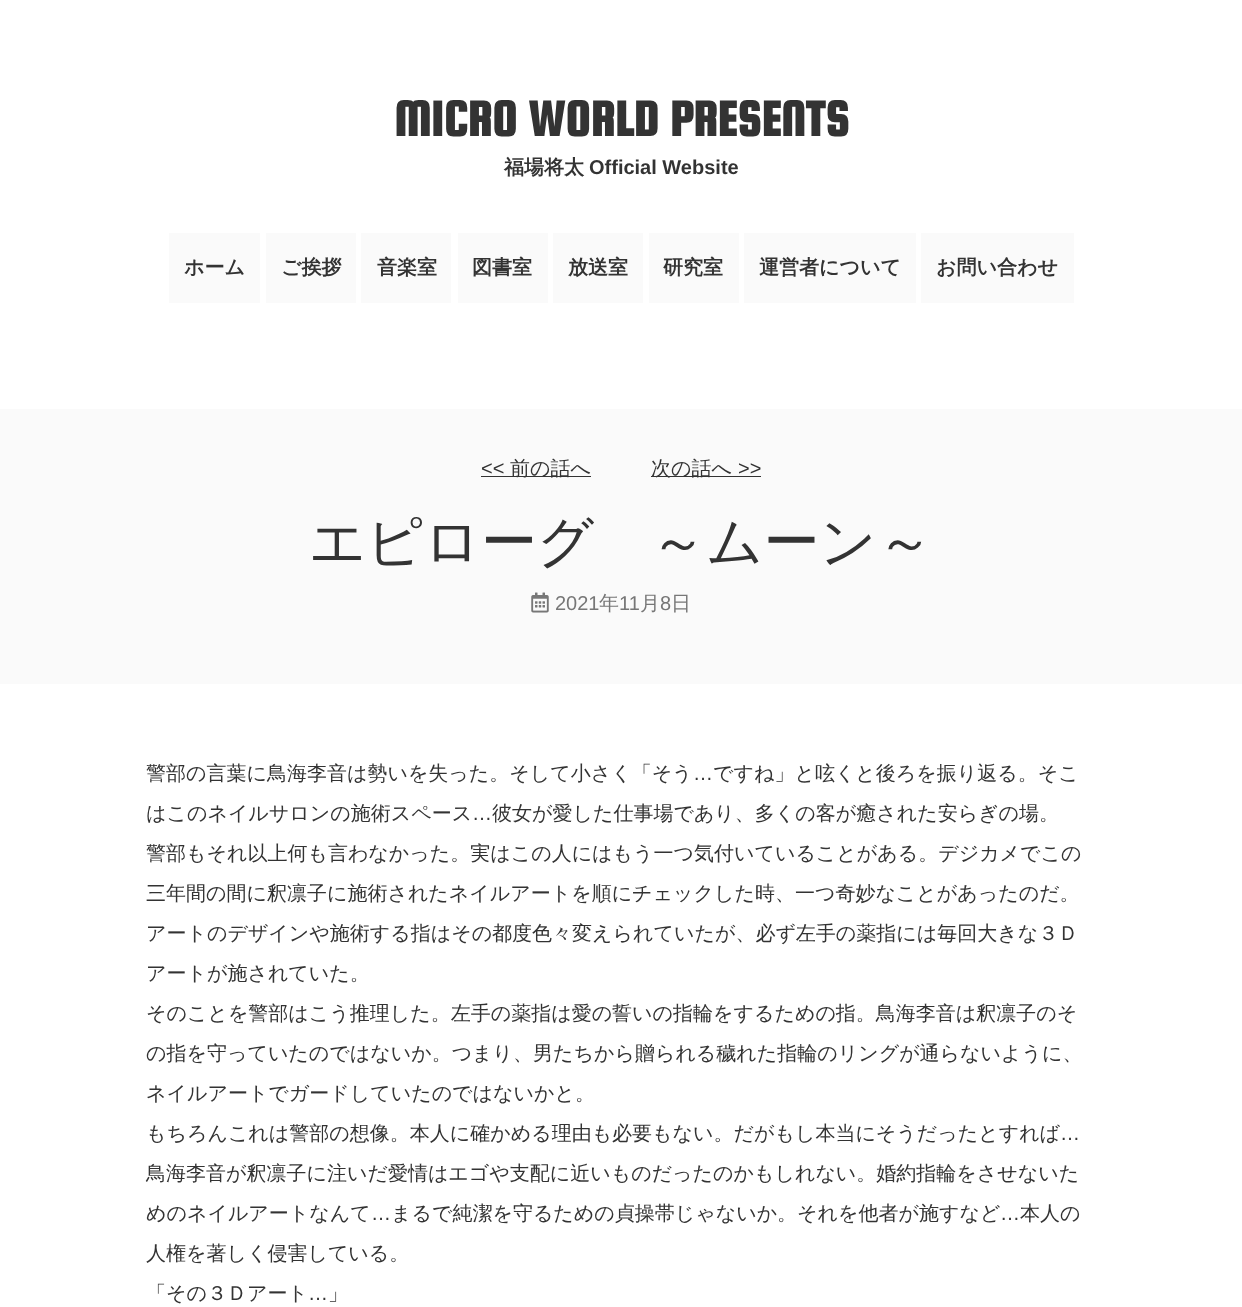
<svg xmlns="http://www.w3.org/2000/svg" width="1242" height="1307">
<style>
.a{font:bold 52.5px Squada One;fill:#333}
.b{font:bold 20px WenQuanYi Zen Hei;fill:#333}
.c{font:bold 20px Liberation Sans;fill:#333}
.d{font:20px Liberation Sans;fill:#333}
.e{font:500 20px WenQuanYi Zen Hei;fill:#333}
.f{font:500 56px WenQuanYi Zen Hei;fill:#333}
.g{font:20px Liberation Sans;fill:#777}
.h{font:500 20px WenQuanYi Zen Hei;fill:#777}
</style>
<rect width="100%" height="100%" fill="#fff"/>
<path fill="#fafafa" d="M169 233h91v70H169z"/>
<path fill="#fafafa" d="M266 233h90v70H266z"/>
<path fill="#fafafa" d="M361 233h90v70H361z"/>
<path fill="#fafafa" d="M458 233h90v70H458z"/>
<path fill="#fafafa" d="M553 233h90v70H553z"/>
<path fill="#fafafa" d="M649 233h90v70H649z"/>
<path fill="#fafafa" d="M744 233h172v70H744z"/>
<path fill="#fafafa" d="M921 233h153v70H921z"/>
<path fill="#fafafa" d="M0 409h1242v275H0z"/>
<path fill="#333" d="M481 476h110v1H481z"/>
<path fill="#333" d="M651 476h110v1H651z"/>
<image href="1.png" x="531" y="592" width="18" height="21"/>
<text class="a" x="394" y="136">MICRO WORLD PRESENTS</text>
<text class="b" x="504" y="174">福場将太</text>
<text class="c" x="589" y="174">Official Website</text>
<text class="b" x="184" y="274">ホーム</text>
<text class="b" x="281" y="274">ご挨拶</text>
<text class="b" x="377" y="274">音楽室</text>
<text class="b" x="472" y="274">図書室</text>
<text class="b" x="568" y="274">放送室</text>
<text class="b" x="663" y="274">研究室</text>
<text class="b" x="759" y="274">運営者について</text>
<text class="b" x="936" y="274">お問い合わせ</text>
<text class="d" x="481" y="475">&lt;&lt;</text>
<text class="e" x="510" y="475">前の話へ</text>
<text class="e" x="651" y="475">次の話へ</text>
<text class="d" x="738" y="475">&gt;&gt;</text>
<text class="f" x="309" y="561">エピローグ　～ムーン～</text>
<text class="g" x="555" y="610">2021</text>
<text class="h" x="599" y="610">年</text>
<text class="g" x="619" y="610">11</text>
<text class="h" x="640" y="610">月</text>
<text class="g" x="660" y="610">8</text>
<text class="h" x="671" y="610">日</text>
<text class="e" x="146" y="780">警部の言葉に鳥海李音は勢いを失った。そして小さく「そう</text>
<text class="d" x="693" y="780">…</text>
<text class="e" x="713" y="780">ですね」と呟くと後ろを振り返る。そこ</text>
<text class="e" x="146" y="820">はこのネイルサロンの施術スペース</text>
<text class="d" x="472" y="820">…</text>
<text class="e" x="492" y="820">彼女が愛した仕事場であり、多くの客が癒された安らぎの場。</text>
<text class="e" x="146" y="860">警部もそれ以上何も言わなかった。実はこの人にはもう一つ気付いていることがある。デジカメでこの</text>
<text class="e" x="146" y="900">三年間の間に釈凛子に施術されたネイルアートを順にチェックした時、一つ奇妙なことがあったのだ。</text>
<text class="e" x="146" y="940">アートのデザインや施術する指はその都度色々変えられていたが、必ず左手の薬指には毎回大きな３Ｄ</text>
<text class="e" x="146" y="980">アートが施されていた。</text>
<text class="e" x="146" y="1020">そのことを警部はこう推理した。左手の薬指は愛の誓いの指輪をするための指。鳥海李音は釈凛子のそ</text>
<text class="e" x="146" y="1060">の指を守っていたのではないか。つまり、男たちから贈られる穢れた指輪のリングが通らないように、</text>
<text class="e" x="146" y="1100">ネイルアートでガードしていたのではないかと。</text>
<text class="e" x="146" y="1140">もちろんこれは警部の想像。本人に確かめる理由も必要もない。だがもし本当にそうだったとすれば</text>
<text class="d" x="1060" y="1140">…</text>
<text class="e" x="146" y="1180">鳥海李音が釈凛子に注いだ愛情はエゴや支配に近いものだったのかもしれない。婚約指輪をさせないた</text>
<text class="e" x="146" y="1220">めのネイルアートなんて</text>
<text class="d" x="371" y="1220">…</text>
<text class="e" x="391" y="1220">まるで純潔を守るための貞操帯じゃないか。それを他者が施すなど</text>
<text class="d" x="1000" y="1220">…</text>
<text class="e" x="1020" y="1220">本人の</text>
<text class="e" x="146" y="1260">人権を著しく侵害している。</text>
<text class="e" x="146" y="1300">「その３Ｄアート</text>
<text class="d" x="308" y="1300">…</text>
<text class="e" x="328" y="1300">」</text>
</svg>
